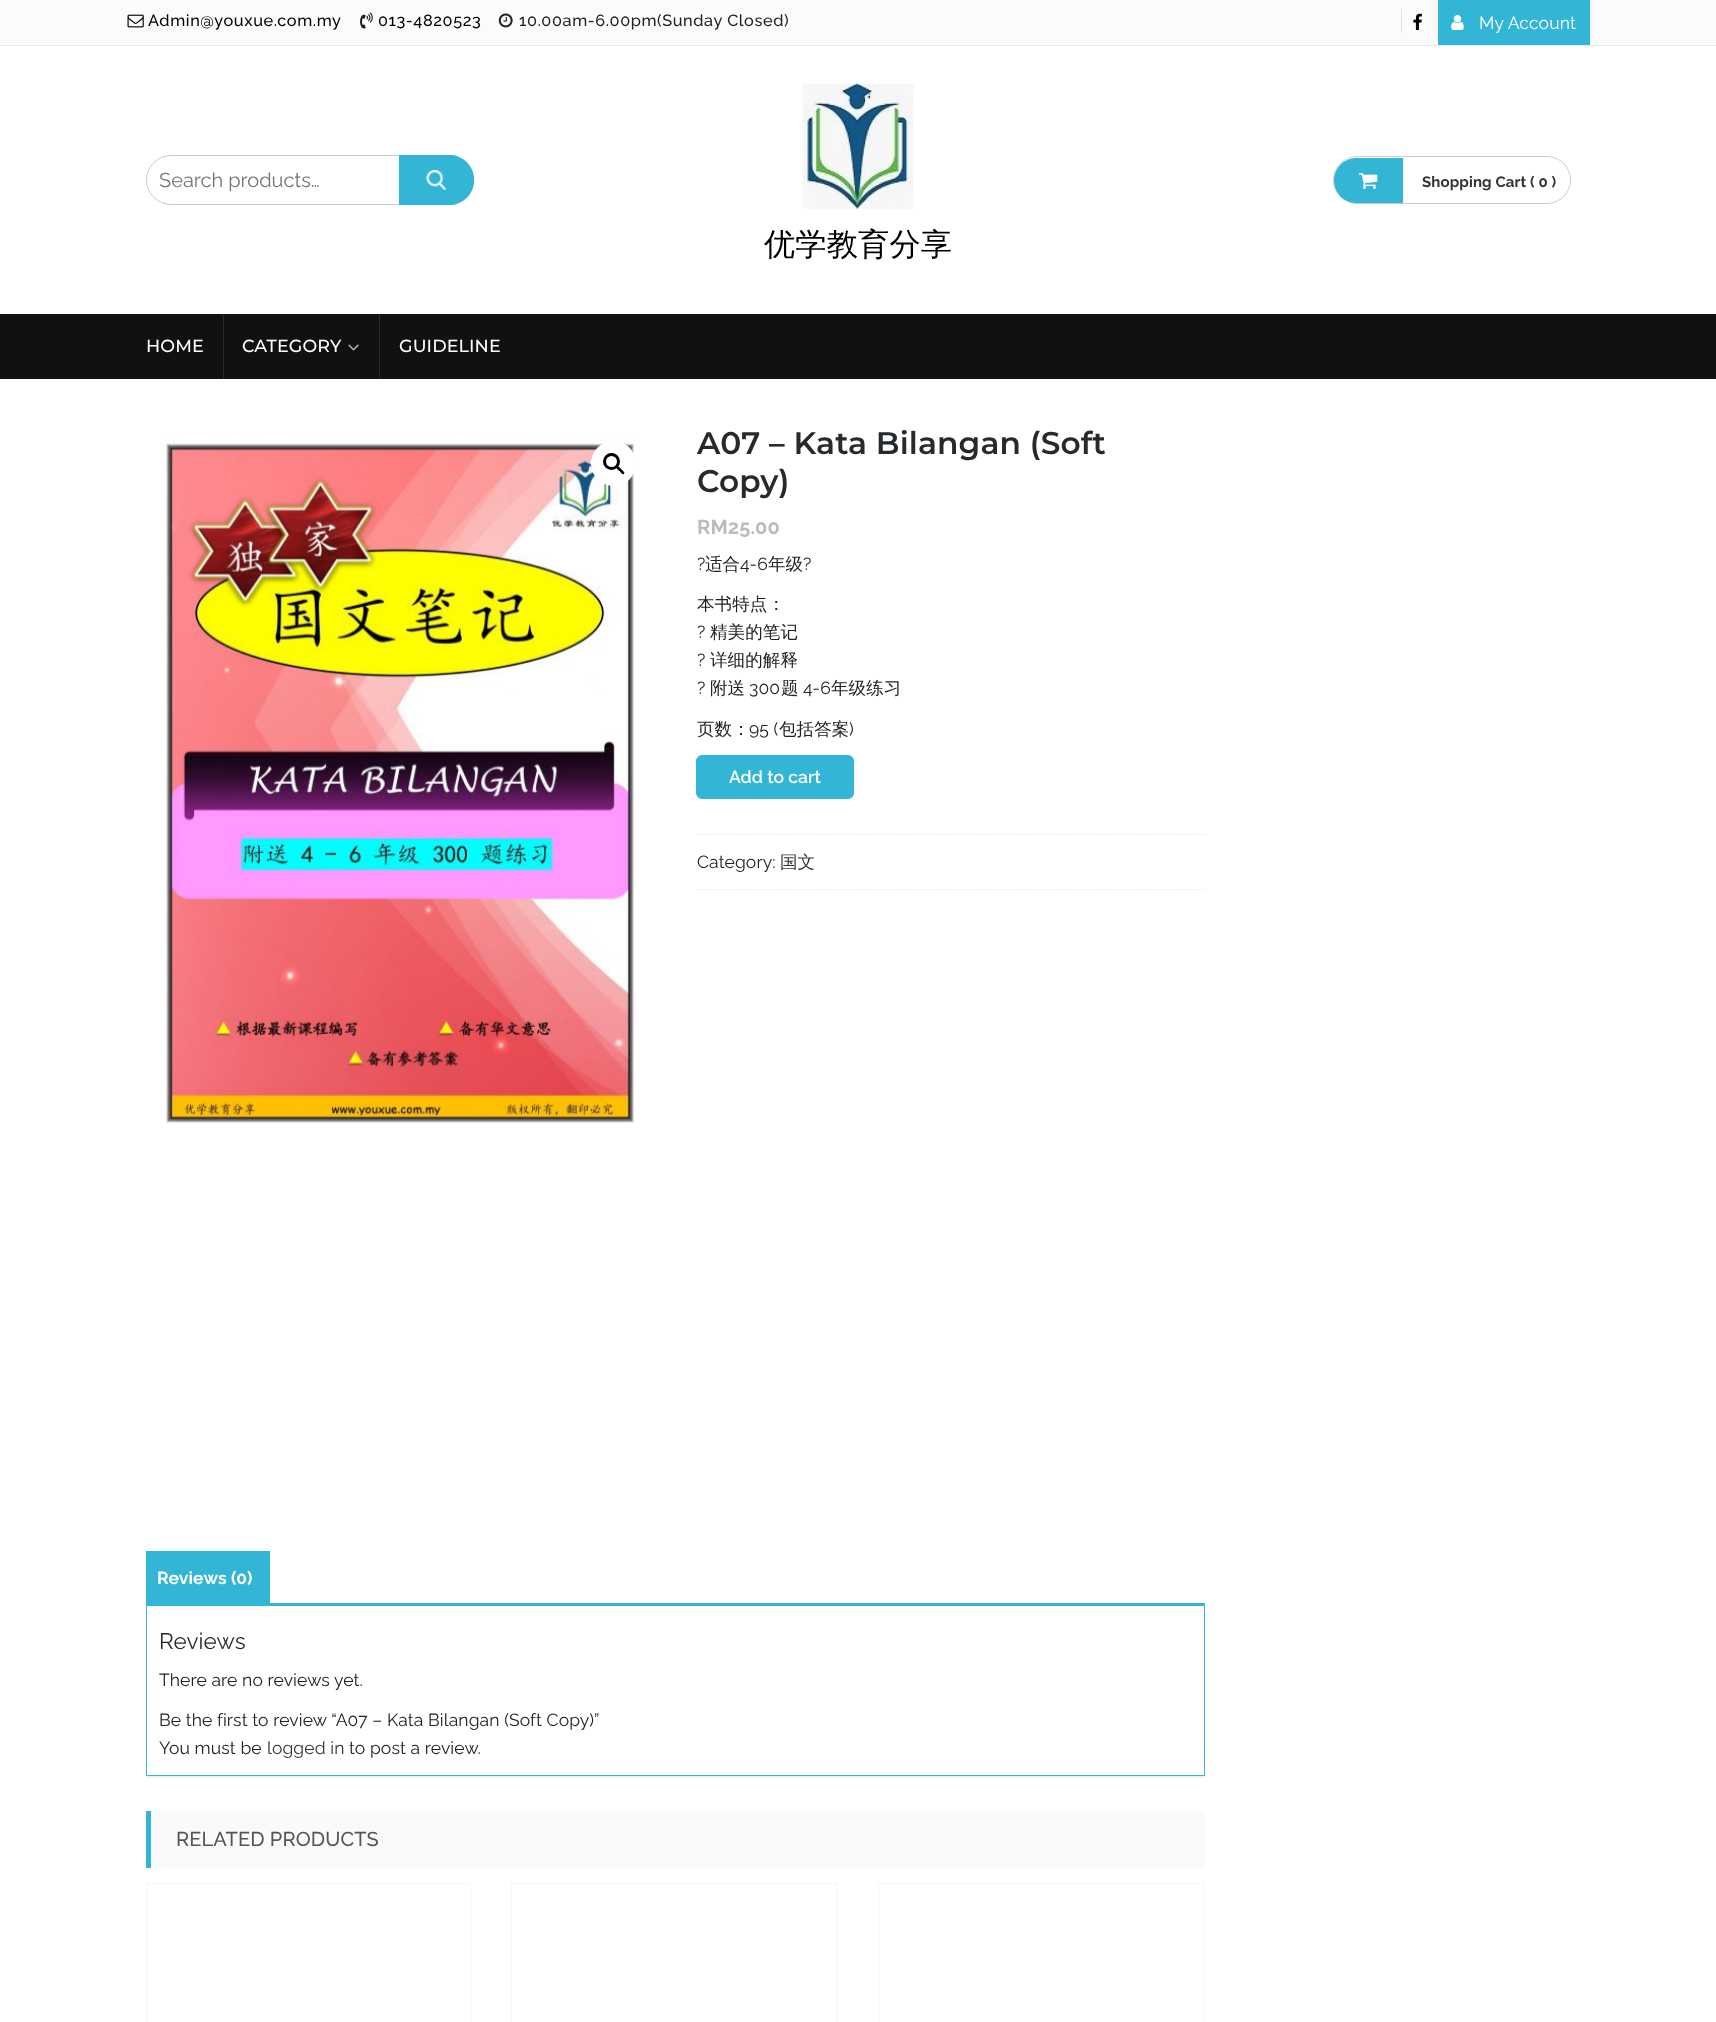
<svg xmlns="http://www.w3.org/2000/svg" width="1716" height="2022">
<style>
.a{font:500 16.25px Raleway;letter-spacing:0.6px;fill:#000}
.b{font:500 16.25px Raleway;letter-spacing:0.6px;fill:#212121}
.c{font:17.5px Raleway;letter-spacing:0.12px;fill:#fff}
.d{font:20px Raleway;fill:#757575}
.e{font:bold 15px Raleway;letter-spacing:0.12px;fill:#333}
.f{font:500 31.25px WenQuanYi Zen Hei;letter-spacing:0.12px;fill:#000}
.g{font:500 17.5px Montserrat;letter-spacing:0.12px;fill:#fff}
.h{font:600 31.25px Montserrat;letter-spacing:0.12px;fill:#262a2d}
.i{font:bold 20px Raleway;letter-spacing:0.12px;fill:#bbb}
.j{font:17.5px Raleway;letter-spacing:0.12px;fill:#212121}
.k{font:500 17.5px WenQuanYi Zen Hei;letter-spacing:0.12px;fill:#212121}
.l{font:600 17.5px Raleway;fill:#fff}
.m{font:500 17.5px WenQuanYi Zen Hei;letter-spacing:0.12px;fill:#333}
.n{font:bold 17.5px Raleway;letter-spacing:0.12px;fill:#fff}
.o{font:22.5px Raleway;letter-spacing:0.12px;fill:#262a2d}
.p{font:17.5px Raleway;letter-spacing:0.12px;fill:#333}
.q{font:500 20px Raleway;letter-spacing:0.12px;fill:#555}
</style>
<rect width="100%" height="100%" fill="#fff"/>
<path fill="#fbfbfb" d="M0 0h1716v45H0z"/>
<path fill="#eaeaea" d="M0 45h1716v1H0z"/>
<image href="1.png" x="127" y="14" width="17" height="14"/>
<image href="2.png" x="360" y="12" width="13" height="17"/>
<image href="3.png" x="498" y="13" width="15" height="15"/>
<path fill="#e2e2e4" d="M1401 9h1v24H1401z"/>
<image href="4.png" x="1413" y="13" width="9" height="17"/>
<path fill="#33b5d6" d="M1438 0h152v45H1438z"/>
<image href="5.png" x="1451" y="15" width="13" height="15"/>
<rect fill="none" stroke="#ccc" x="146.5" y="155.5" width="327" height="49" rx="24.5"/>
<path fill="#33b5d6" d="M399 155h50c14 0 25 11 25 25c0 14-11 25-25 25h-50z"/>
<image href="6.png" x="426" y="170" width="21" height="20"/>
<path fill="none" stroke="#33b5d6" d="M399.5 155.5h49.5c13.5 0 24.5 11 24.5 24.5c0 13.5-11 24.5-24.5 24.5h-49.5z"/>
<rect fill="none" stroke="#ccc" x="1333.5" y="156.5" width="237" height="47" rx="23.5"/>
<path fill="#33b5d6" d="M1356.5 158h47.5v45h-47.5c-12.5 0-22.5-10-22.5-22.5c0-12.5 10-22.5 22.5-22.5z"/>
<path fill="#f5f5f5" d="M1403 158h1v45H1403z"/>
<image href="7.png" x="1358" y="173" width="20" height="16"/>
<image href="8.png" x="802" y="83" width="112" height="126"/>
<path fill="#111" d="M0 314h1716v65H0z"/>
<path fill="#2b2b2b" d="M223 314h1v65H223z"/>
<path fill="#2b2b2b" d="M379 314h1v65H379z"/>
<image href="9.png" x="348" y="344" width="11" height="7"/>
<image href="10.png" x="162" y="439" width="473" height="685"/>
<circle fill="#fff" cx="613.5" cy="463.5" r="22.5"/>
<circle fill="none" stroke="#000" stroke-width="3" cx="611.5" cy="461.5" r="7"/>
<path fill="#000" d="M617 467c1.5-1.5 3.5 1.5 4.5 2.5c.5 .5 4 3 2.5 4.5c-1.5 1.5-3.5-2-4.5-3c-1-.5-4-3-2.5-4z"/>
<rect fill="#33b5d6" stroke="#33b5d6" x="696.5" y="755.5" width="157" height="43" rx="5.5"/>
<path fill="none" stroke="#e6e6e6" stroke-width="1.2" stroke-dasharray="1.25 1.25" d="M696 834.5h509"/>
<path fill="none" stroke="#e6e6e6" stroke-width="1.2" stroke-dasharray="1.25 1.25" d="M696 889.5h509"/>
<path fill="#0000000d" filter="blur(0.5px)" d="M146 1606h1059v172H146z"/>
<path fill="#33b5d6" d="M146 1551h124v54H146z"/>
<path fill="#33b5d6" d="M270 1603h935v2H270z"/>
<path fill="#fff" stroke="#33b5d6" d="M146.5 1605.5h1058v170H146.5z"/>
<path fill="#fafafa" d="M151 1811h1054v57H151z"/>
<path fill="#33b5d6" d="M146 1811h5v57H146z"/>
<path fill="none" stroke="#f5f5f5" d="M146.5 1883.5h324v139H146.5z"/>
<path fill="none" stroke="#f5f5f5" d="M511.5 1883.5h326v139H511.5z"/>
<path fill="none" stroke="#f5f5f5" d="M878.5 1883.5h325v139H878.5z"/>
<text class="a" x="148" y="26">Admin@youxue.com.my</text>
<text class="a" x="378" y="26">013-4820523</text>
<text class="b" x="519" y="26">10.00am-6.00pm(Sunday Closed)</text>
<text class="c" x="1479" y="29">My Account</text>
<text class="d" x="159" y="187">Search products…</text>
<text class="e" x="1422" y="187">Shopping Cart ( 0 )</text>
<text class="f" x="764" y="255">优学教育分享</text>
<text class="g" x="146" y="352">HOME</text>
<text class="g" x="242" y="352">CATEGORY</text>
<text class="g" x="399" y="352">GUIDELINE</text>
<text class="h" x="697" y="454">A07 – Kata Bilangan (Soft</text>
<text class="h" x="697" y="492">Copy)</text>
<text class="i" x="697" y="534">RM25.00</text>
<text class="j" x="697" y="570">?</text>
<text class="k" x="705" y="570">适合</text>
<text class="j" x="740" y="570">4-6</text>
<text class="k" x="768" y="570">年级</text>
<text class="j" x="803" y="570">?</text>
<text class="k" x="697" y="610">本书特点：</text>
<text class="j" x="697" y="638">?</text>
<text class="k" x="710" y="638">精美的笔记</text>
<text class="j" x="697" y="666">?</text>
<text class="k" x="710" y="666">详细的解释</text>
<text class="j" x="697" y="694">?</text>
<text class="k" x="710" y="694">附送</text>
<text class="j" x="749" y="694">300</text>
<text class="k" x="781" y="694">题</text>
<text class="j" x="803" y="694">4-6</text>
<text class="k" x="831" y="694">年级练习</text>
<text class="k" x="697" y="735">页数：</text>
<text class="j" x="749" y="735">95 (</text>
<text class="k" x="779" y="735">包括答案</text>
<text class="j" x="849" y="735">)</text>
<text class="l" x="729" y="783">Add to cart</text>
<text class="j" x="697" y="868">Category:</text>
<text class="m" x="780" y="868">国文</text>
<text class="n" x="157" y="1584">Reviews (0)</text>
<text class="o" x="159" y="1649">Reviews</text>
<text class="j" x="159" y="1686">There are no reviews yet.</text>
<text class="j" x="159" y="1726">Be the first to review “A07 – Kata Bilangan (Soft Copy)”</text>
<text class="j" x="159" y="1754">You must be</text>
<text class="p" x="267" y="1754">logged in</text>
<text class="j" x="349" y="1754">to post a review.</text>
<text class="q" x="176" y="1846">RELATED PRODUCTS</text>
</svg>
